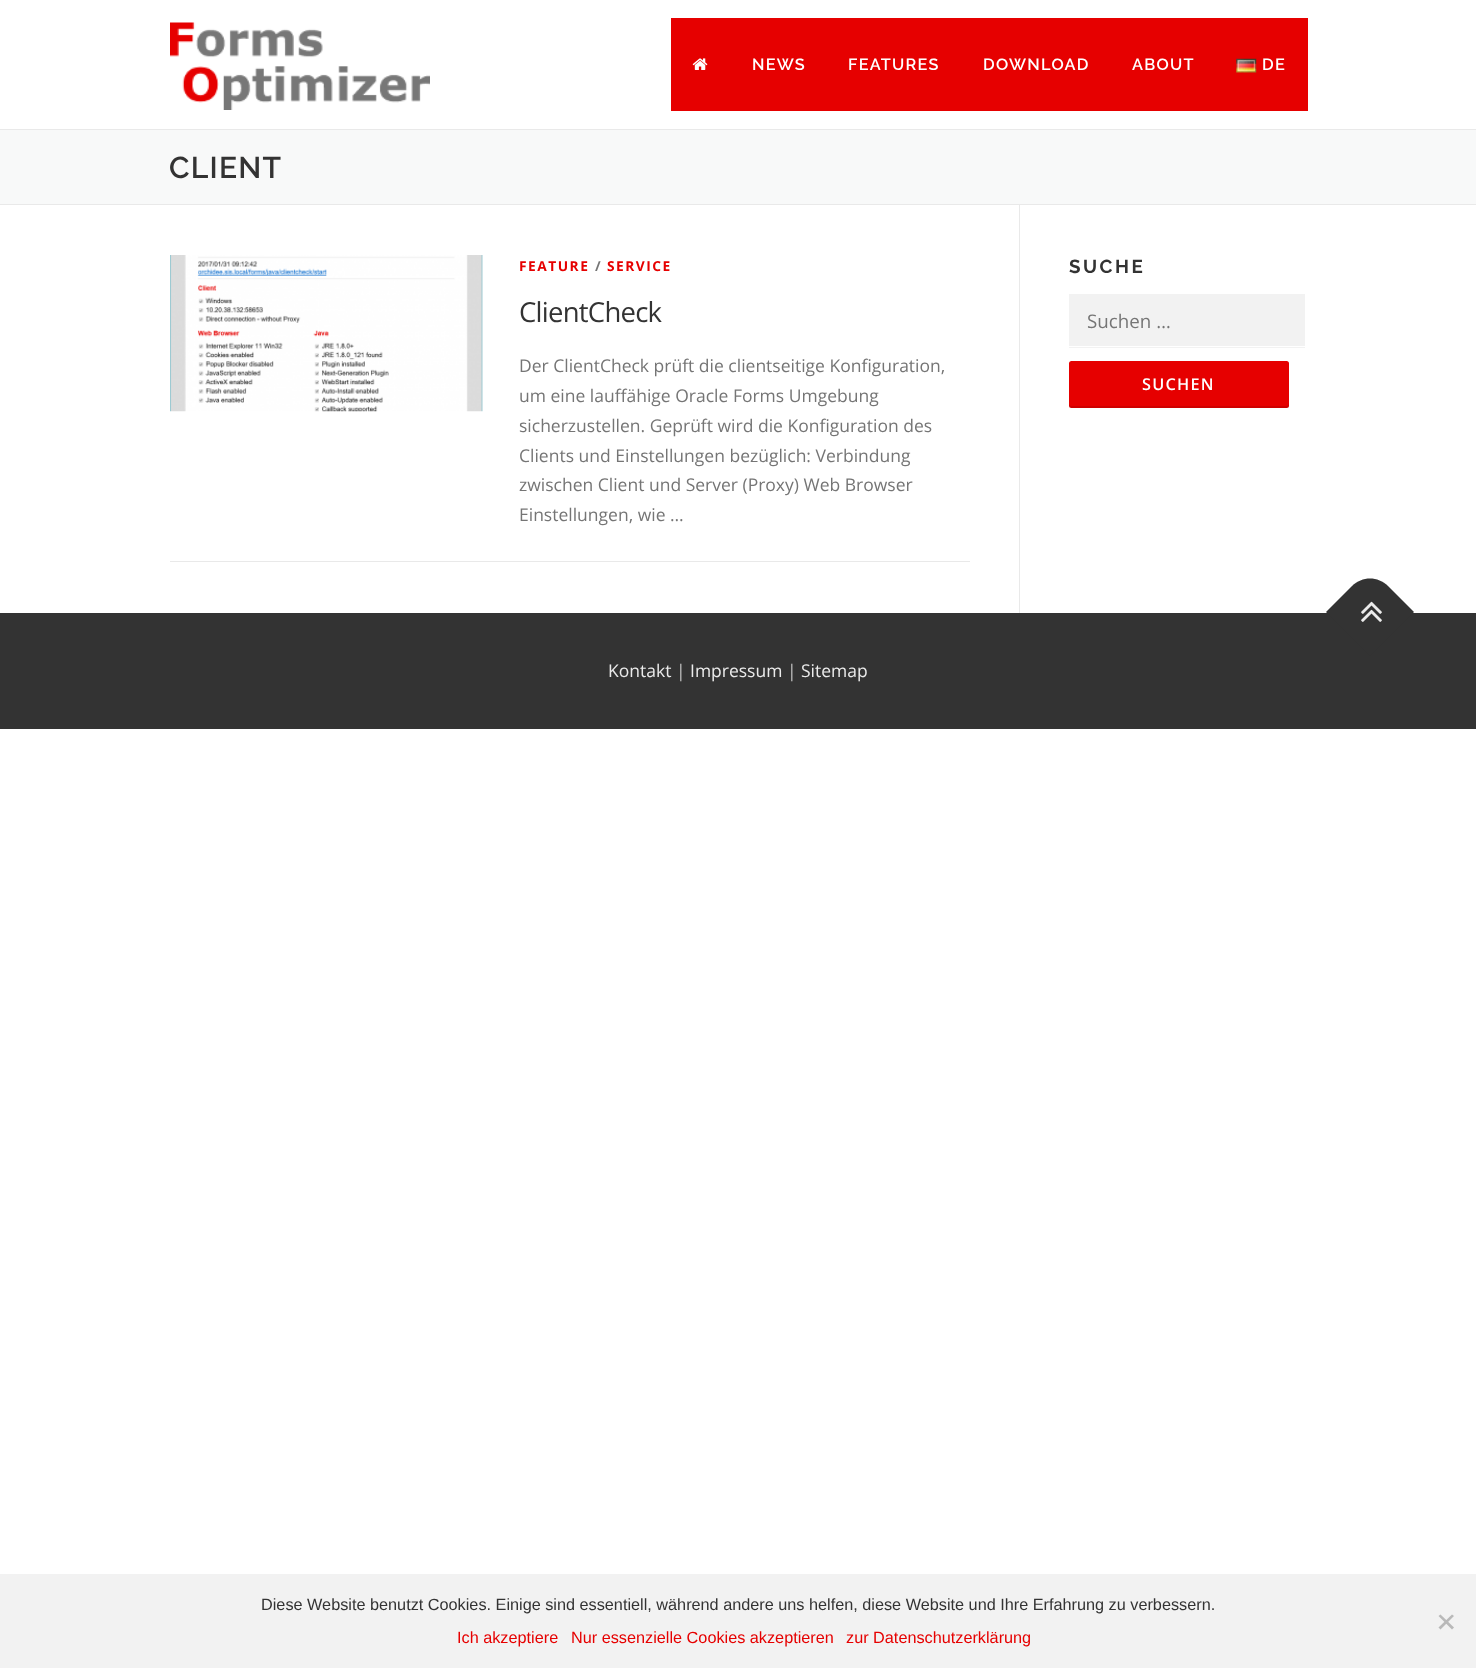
<svg xmlns="http://www.w3.org/2000/svg" width="1476" height="1668">
<style>
.a{font:600 16.25px Raleway;letter-spacing:1.25px;fill:#fff}
.b{font:600 30px Raleway;letter-spacing:1.25px;fill:#333}
.c{font:bold 13.75px Open Sans;letter-spacing:1.5px;fill:#e60000}
.d{font:bold 13.75px Open Sans;letter-spacing:1.5px;fill:#757575}
.e{font:27.5px Open Sans;letter-spacing:-0.75px;fill:#333}
.f{font:17.5px Open Sans;fill:#757575}
.g{font:bold 18.75px Raleway;letter-spacing:2.5px;fill:#333}
.h{font:18.75px Open Sans;fill:#757575}
.i{font:600 16.25px Open Sans;letter-spacing:1.25px;fill:#fff}
.j{font:17.5px Open Sans;fill:#ebebeb}
.k{font:17.5px Open Sans;fill:#c2c2c2}
.l{font:16.25px Liberation Sans;fill:#333}
.m{font:16.25px Liberation Sans;fill:#e60000}
</style>
<rect width="100%" height="100%" fill="#fff"/>
<image href="1.png" x="170" y="22" width="260" height="88"/>
<path fill="#e60000" d="M671 18h637v93H671z"/>
<image href="2.png" x="692" y="58" width="16" height="12"/>
<image href="3.png" x="1236" y="58" width="21" height="15"/>
<path fill="#f8f9f9" d="M0 130h1476v74H0z"/>
<path fill="#e9e9e9" d="M0 129h1476v1H0z"/>
<path fill="#e9e9e9" d="M0 204h1476v1H0z"/>
<path fill="#e9e9e9" d="M1019 205h1v408H1019z"/>
<path fill="#e9e9e9" d="M170 561h800v1H170z"/>
<image href="4.png" x="170" y="255" width="313" height="157"/>
<path fill="#f2f2f2" d="M1069 294h236v54H1069z"/>
<path fill="#fff" d="M1069 346h236v1H1069z"/>
<rect fill="#e60000" x="1069" y="361" width="220" height="47" rx="2.5"/>
<path fill="#0000001a" d="M1069 404v2c0 1 1 2 3 2h214c2 0 3-1 3-2v-2c0 1-1 2-3 2h-215c-1 0-2-1-2-2z"/>
<path fill="#333" d="M0 613h1476v116H0z"/>
<path fill="#333" d="M1326 612l26-26c10-10 26-10 36 0l26 26l-44 44z"/>
<image href="5.png" x="1361" y="601" width="21" height="21"/>
<path fill="#f2f2f2" d="M0 1574h1476v94H0z"/>
<path fill="#b9b9b9" d="M1452 1614.5l2 1.5l-13.5 13.5l-2-2z"/>
<path fill="#b9b9b9" d="M1438.5 1616l2-1.5l13.5 13l-2 2z"/>
<text class="a" x="752" y="70">NEWS</text>
<text class="a" x="848" y="70">FEATURES</text>
<text class="a" x="983" y="70">DOWNLOAD</text>
<text class="a" x="1132" y="70">ABOUT</text>
<text class="a" x="1262" y="70">DE</text>
<text class="b" x="169" y="178">CLIENT</text>
<text class="c" x="519" y="271">FEATURE</text>
<text class="d" x="595" y="271">/</text>
<text class="c" x="607" y="271">SERVICE</text>
<text class="e" x="519" y="322">ClientCheck</text>
<text class="f" x="519" y="372">Der ClientCheck prüft die clientseitige Konfiguration,</text>
<text class="f" x="519" y="402">um eine lauffähige Oracle Forms Umgebung</text>
<text class="f" x="519" y="432">sicherzustellen. Geprüft wird die Konfiguration des</text>
<text class="f" x="519" y="462">Clients und Einstellungen bezüglich: Verbindung</text>
<text class="f" x="519" y="491">zwischen Client und Server (Proxy) Web Browser</text>
<text class="f" x="519" y="521">Einstellungen, wie …</text>
<text class="g" x="1069" y="273">SUCHE</text>
<text class="h" x="1087" y="328">Suchen …</text>
<text class="i" x="1142" y="390">SUCHEN</text>
<text class="j" x="608" y="677">Kontakt</text>
<text class="k" x="676" y="677">|</text>
<text class="j" x="690" y="677">Impressum</text>
<text class="k" x="787" y="677">|</text>
<text class="j" x="801" y="677">Sitemap</text>
<text class="l" x="261" y="1610">Diese Website benutzt Cookies. Einige sind essentiell, während andere uns helfen, diese Website und Ihre Erfahrung zu verbessern.</text>
<text class="m" x="457" y="1643">Ich akzeptiere</text>
<text class="m" x="571" y="1643">Nur essenzielle Cookies akzeptieren</text>
<text class="m" x="846" y="1643">zur Datenschutzerklärung</text>
</svg>
